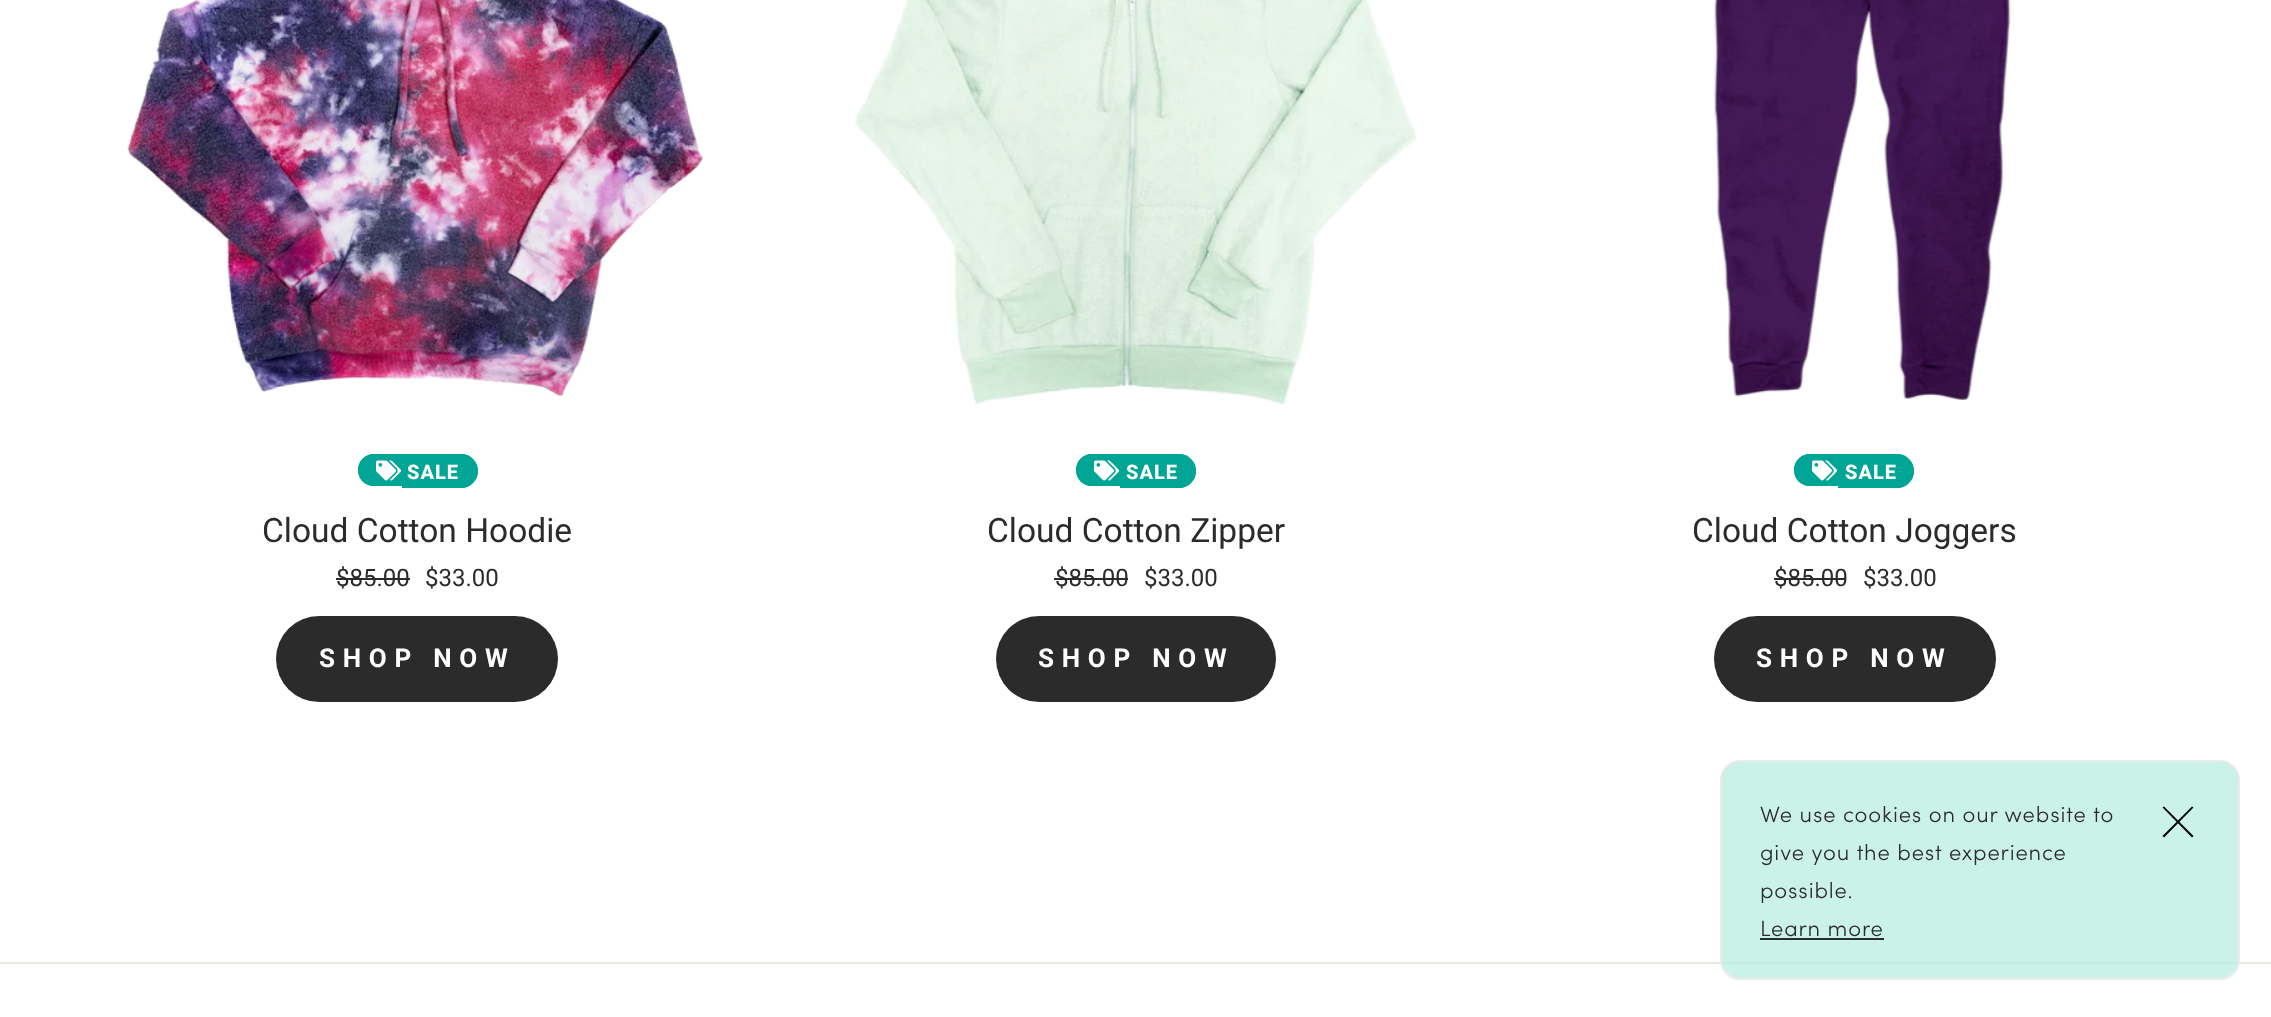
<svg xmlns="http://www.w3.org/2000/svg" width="2271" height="1017">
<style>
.a{font:800 20px Roboto;letter-spacing:1px;fill:#fff}
.b{font:33.5px Roboto;fill:#2b2b2b}
.c{font:24px Roboto;fill:#2b2b2b}
.d{font:bold 26px Roboto;letter-spacing:7.75px;fill:#fff}
.e{font:300 22px Sofia;letter-spacing:0.85px;fill:#2b2b2b}
</style>
<rect width="100%" height="100%" fill="#fff"/>
<image href="1.png" x="127" y="0" width="576" height="397"/>
<path fill="#00a595" d="M374 454h28v32h-28c-9 0-16-7-16-16c0-9 7-16 16-16z"/>
<path fill="#00a595" fill-rule="evenodd" d="M374 454h28v32h-28c-9 0-16-7-16-16c0-9 7-16 16-16zm0 2h28v28h-28c-8 0-14-6-14-14c0-8 6-14 14-14z"/>
<path fill="#00a595" d="M402 454h59c9.5 0 17 7.5 17 17c0 9.5-7.5 17-17 17h-59z"/>
<path fill="#00a595" fill-rule="evenodd" d="M402 454h59c9 0 17 8 17 17c0 9-8 17-17 17h-59zm0 2h59c8 0 15 7 15 15c0 8-7 15-15 15h-59z"/>
<image href="2.png" x="376" y="460" width="25" height="21"/>
<path fill="#2b2b2b" d="M336 578h74v2H336z"/>
<rect fill="#2b2b2b" x="276" y="616" width="282" height="86" rx="43"/>
<image href="3.png" x="855" y="0" width="561" height="405"/>
<path fill="#00a595" d="M1092 454h28v32h-28c-9 0-16-7-16-16c0-9 7-16 16-16z"/>
<path fill="#00a595" fill-rule="evenodd" d="M1092 454h28v32h-28c-9 0-16-7-16-16c0-9 7-16 16-16zm0 2h28v28h-28c-8 0-14-6-14-14c0-8 6-14 14-14z"/>
<path fill="#00a595" d="M1120 454h59c9.5 0 17 7.5 17 17c0 9.5-7.5 17-17 17h-59z"/>
<path fill="#00a595" fill-rule="evenodd" d="M1120 454h59c9 0 17 8 17 17c0 9-8 17-17 17h-59zm0 2h59c8 0 15 7 15 15c0 8-7 15-15 15h-59z"/>
<image href="2.png" x="1094" y="460" width="25" height="21"/>
<path fill="#2b2b2b" d="M1054 578h74v2H1054z"/>
<rect fill="#2b2b2b" x="996" y="616" width="280" height="86" rx="43"/>
<image href="4.png" x="1714" y="0" width="297" height="400"/>
<path fill="#00a595" d="M1810 454h28v32h-28c-9 0-16-7-16-16c0-9 7-16 16-16z"/>
<path fill="#00a595" fill-rule="evenodd" d="M1810 454h28v32h-28c-9 0-16-7-16-16c0-9 7-16 16-16zm0 2h28v28h-28c-8 0-14-6-14-14c0-8 6-14 14-14z"/>
<path fill="#00a595" d="M1838 454h59c9.5 0 17 7.5 17 17c0 9.5-7.5 17-17 17h-59z"/>
<path fill="#00a595" fill-rule="evenodd" d="M1838 454h59c9 0 17 8 17 17c0 9-8 17-17 17h-59zm0 2h59c8 0 15 7 15 15c0 8-7 15-15 15h-59z"/>
<image href="2.png" x="1812" y="460" width="25" height="21"/>
<path fill="#2b2b2b" d="M1774 578h72v2H1774z"/>
<rect fill="#2b2b2b" x="1714" y="616" width="282" height="86" rx="43"/>
<path fill="#e8e8e1" d="M0 962h2271v2H0z"/>
<rect fill="#b9eee2bf" stroke="#ebebeb" stroke-width="2" x="1721" y="761" width="518" height="218" rx="19"/>
<path fill="#2b2b2b" d="M1760 938h124v2H1760z"/>
<path fill="#000" d="M2162.5 836l29.5-29.5l1.5 1l-29.5 30z"/>
<path fill="#000" d="M2164 806.5l29.5 29.5l-1.5 1.5l-29.5-30z"/>
<text class="a" x="407" y="479">SALE</text>
<text class="b" x="262" y="542">Cloud Cotton Hoodie</text>
<text class="c" x="336" y="586">$85.00</text>
<text class="c" x="425" y="586">$33.00</text>
<text class="d" x="319" y="667">SHOP NOW</text>
<text class="a" x="1126" y="479">SALE</text>
<text class="b" x="987" y="542">Cloud Cotton Zipper</text>
<text class="c" x="1055" y="586">$85.00</text>
<text class="c" x="1144" y="586">$33.00</text>
<text class="d" x="1038" y="667">SHOP NOW</text>
<text class="a" x="1845" y="479">SALE</text>
<text class="b" x="1692" y="542">Cloud Cotton Joggers</text>
<text class="c" x="1774" y="586">$85.00</text>
<text class="c" x="1863" y="586">$33.00</text>
<text class="d" x="1756" y="667">SHOP NOW</text>
<text class="e" x="1760" y="822">We use cookies on our website to</text>
<text class="e" x="1760" y="860">give you the best experience</text>
<text class="e" x="1760" y="898">possible.</text>
<text class="e" x="1760" y="936">Learn more</text>
</svg>
